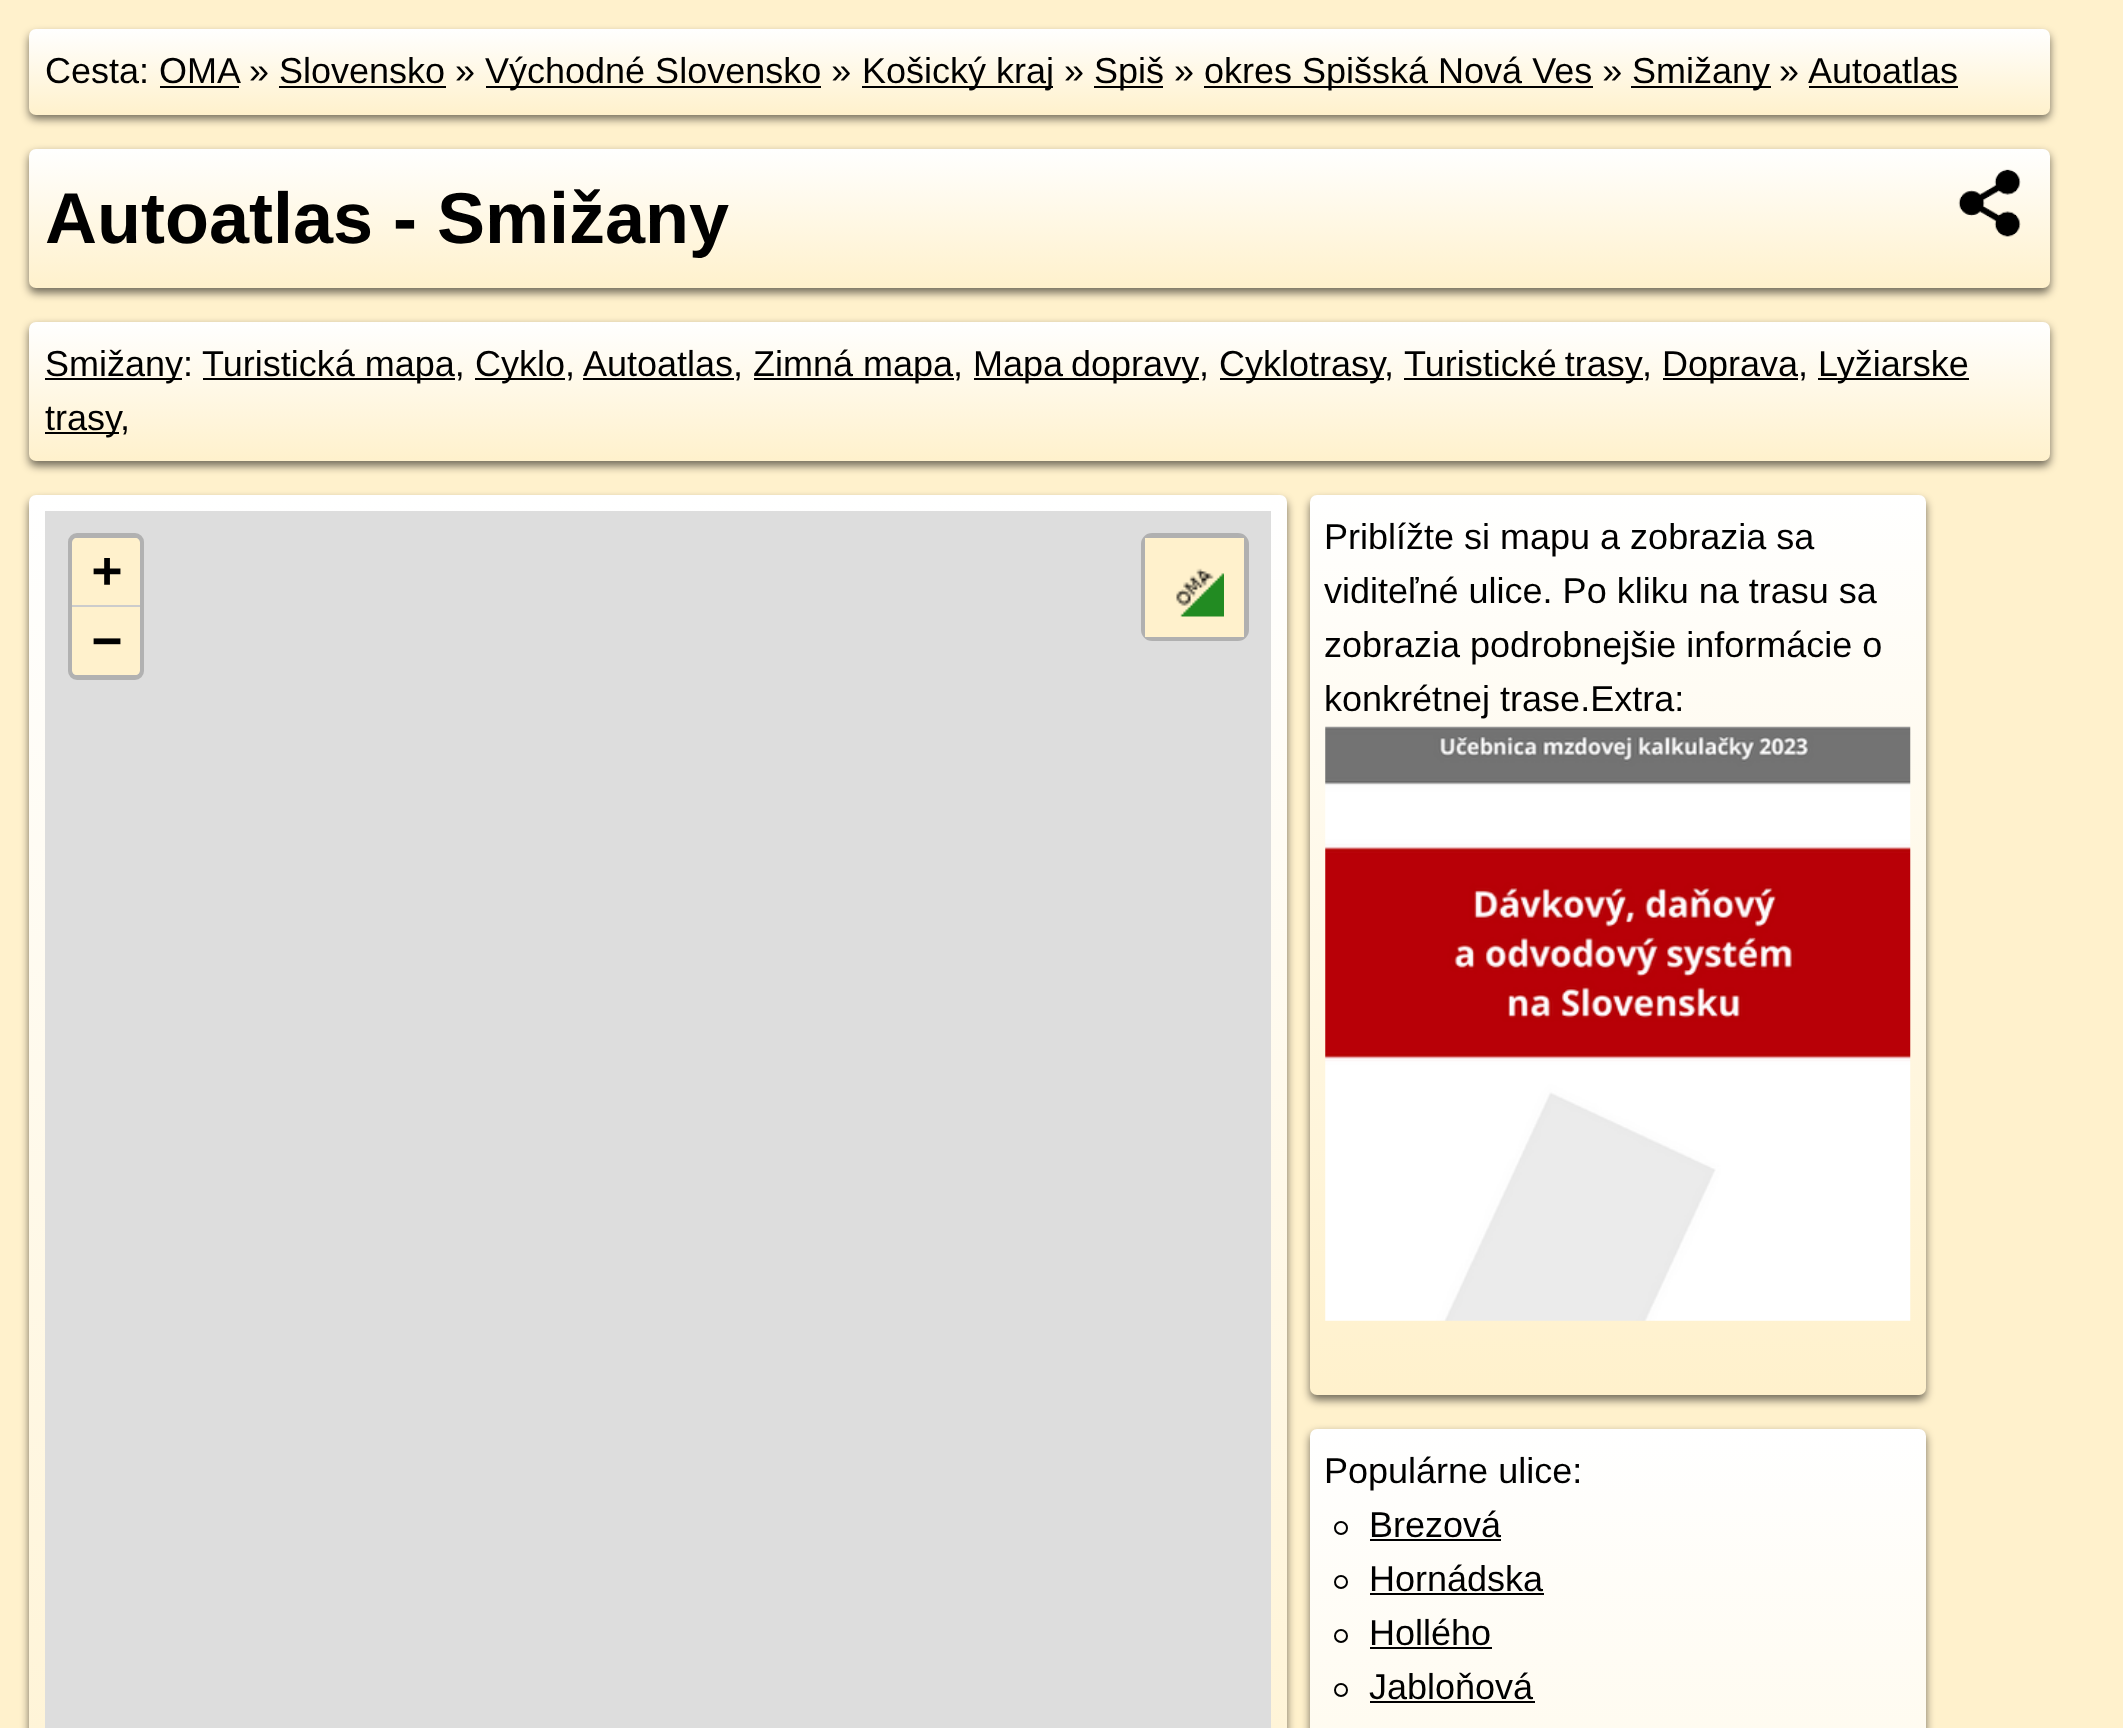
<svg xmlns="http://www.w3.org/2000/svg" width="2123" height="1728">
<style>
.a{font:36px Liberation Sans;fill:#000}
.b{font:bold 72px Liberation Sans;fill:#000}
.c{font:bold 50px DejaVu Sans Mono;fill:#000}
</style>
<defs>
<linearGradient id="g1" gradientUnits="userSpaceOnUse" x1="1040" y1="29" x2="1040" y2="115"><stop offset="0" stop-color="#fff"/><stop offset="1" stop-color="#fff1cc"/></linearGradient>
<linearGradient id="g2" gradientUnits="userSpaceOnUse" x1="1040" y1="148" x2="1040" y2="288"><stop offset="0" stop-color="#fff"/><stop offset="1" stop-color="#fff1cc"/></linearGradient>
<linearGradient id="g3" gradientUnits="userSpaceOnUse" x1="1040" y1="322" x2="1040" y2="461"><stop offset="0" stop-color="#fff"/><stop offset="1" stop-color="#fff1cc"/></linearGradient>
<linearGradient id="g4" gradientUnits="userSpaceOnUse" x1="658" y1="495" x2="658" y2="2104"><stop offset="0" stop-color="#fff"/><stop offset="1" stop-color="#fff1cc"/></linearGradient>
<linearGradient id="g5" gradientUnits="userSpaceOnUse" x1="1618" y1="495" x2="1618" y2="1395"><stop offset="0" stop-color="#fff"/><stop offset="1" stop-color="#fff1cc"/></linearGradient>
<linearGradient id="g6" gradientUnits="userSpaceOnUse" x1="1618" y1="1429" x2="1618" y2="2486"><stop offset="0" stop-color="#fff"/><stop offset="1" stop-color="#fff1cc"/></linearGradient>
</defs>
<rect width="100%" height="100%" fill="#fff1cc"/>
<rect fill="#0000008c" filter="blur(4.5px)" x="29" y="34" width="2021" height="85" rx="7"/>
<rect fill="url(#g1)" x="29" y="29" width="2021" height="86" rx="7"/>
<path fill="#000" d="M486 86h335v2H486z"/>
<path fill="#000" d="M862 86h191v2H862z"/>
<path fill="#000" d="M1094 86h69v2H1094z"/>
<path fill="#000" d="M1204 86h389v2H1204z"/>
<path fill="#000" d="M1631 86h140v2H1631z"/>
<path fill="#000" d="M1809 86h149v2H1809z"/>
<path fill="#000" d="M160 86h79v2H160z"/>
<path fill="#000" d="M279 86h167v2H279z"/>
<rect fill="#0000008c" filter="blur(4.5px)" x="29" y="153" width="2021" height="140" rx="7"/>
<rect fill="url(#g2)" x="29" y="149" width="2021" height="139" rx="7"/>
<image href="1.png" x="1958" y="169" width="63" height="68"/>
<rect fill="#0000008c" filter="blur(4.5px)" x="29" y="326" width="2021" height="140" rx="7"/>
<rect fill="url(#g3)" x="29" y="322" width="2021" height="139" rx="7"/>
<path fill="#000" d="M45 378h137v2H45z"/>
<path fill="#000" d="M203 378h252v2H203z"/>
<path fill="#000" d="M475 378h90v2H475z"/>
<path fill="#000" d="M583 378h151v2H583z"/>
<path fill="#000" d="M754 378h200v2H754z"/>
<path fill="#000" d="M974 378h225v2H974z"/>
<path fill="#000" d="M1220 378h164v2H1220z"/>
<path fill="#000" d="M1404 378h239v2H1404z"/>
<path fill="#000" d="M1663 378h135v2H1663z"/>
<path fill="#000" d="M1818 378h151v2H1818z"/>
<path fill="#000" d="M45 432h74v2H45z"/>
<rect fill="#0000008c" filter="blur(4.5px)" x="29" y="500" width="1258" height="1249" rx="7"/>
<rect fill="url(#g4)" x="29" y="495" width="1258" height="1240" rx="7"/>
<path fill="#ddd" d="M45 511h1226v1217H45z"/>
<rect fill="none" stroke="#b1b1b1" stroke-width="5" x="70.5" y="535.5" width="71" height="142" rx="6.5"/>
<path fill="#fff1cc" d="M77 538h58c3 0 5 2 5 5v65h-68v-65c0-3 2-5 5-5z"/>
<path fill="#ccc" d="M72 605h68v2H72z"/>
<path fill="#fff1cc" d="M72 608h68v62c0 3-2 5-5 5h-58c-3 0-5-2-5-5z"/>
<rect fill="none" stroke="#00000033" stroke-width="5" x="1143.5" y="535.5" width="103" height="103" rx="8.5"/>
<path fill="#fff1cc" d="M1145 538h99v99H1145z"/>
<image href="2.png" x="1176" y="568" width="48" height="49"/>
<rect fill="#0000008c" filter="blur(4.5px)" x="1310" y="500" width="616" height="900" rx="7"/>
<rect fill="url(#g5)" x="1310" y="495" width="616" height="900" rx="7"/>
<image href="3.png" x="1325" y="726" width="586" height="595"/>
<rect fill="#0000008c" filter="blur(4.5px)" x="1310" y="1433" width="616" height="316" rx="7"/>
<rect fill="url(#g6)" x="1310" y="1429" width="616" height="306" rx="7"/>
<circle fill="none" stroke="#000" stroke-width="2" cx="1341" cy="1528" r="6"/>
<path fill="#000" d="M1370 1539h131v2H1370z"/>
<circle fill="none" stroke="#000" stroke-width="2" cx="1341" cy="1582" r="6"/>
<path fill="#000" d="M1370 1593h174v2H1370z"/>
<circle fill="none" stroke="#000" stroke-width="2" cx="1341" cy="1636" r="6"/>
<path fill="#000" d="M1370 1647h122v2H1370z"/>
<circle fill="none" stroke="#000" stroke-width="2" cx="1341" cy="1690" r="6"/>
<path fill="#000" d="M1370 1701h165v2H1370z"/>
<text class="a" x="45" y="83">Cesta: OMA</text>
<text class="a" x="249" y="83">» Slovensko »</text>
<text class="a" x="485" y="83">Východné Slovensko »</text>
<text class="a" x="862" y="83">Košický kraj »</text>
<text class="a" x="1094" y="83">Spiš »</text>
<text class="a" x="1204" y="83">okres Spišská Nová Ves »</text>
<text class="a" x="1632" y="83">Smižany</text>
<text class="a" x="1779" y="83">»</text>
<text class="a" x="1808" y="83">Autoatlas</text>
<text class="b" x="45" y="243">Autoatlas - Smižany</text>
<text class="a" x="45" y="376">Smižany:</text>
<text class="a" x="202" y="376">Turistická mapa,</text>
<text class="a" x="475" y="376">Cyklo,</text>
<text class="a" x="583" y="376">Autoatlas,</text>
<text class="a" x="753" y="376">Zimná mapa,</text>
<text class="a" x="973" y="376" word-spacing="-2">Mapa dopravy</text>
<text class="a" x="1199" y="376">,</text>
<text class="a" x="1219" y="376">Cyklotrasy</text>
<text class="a" x="1384" y="376">,</text>
<text class="a" x="1404" y="376" word-spacing="-2">Turistické trasy</text>
<text class="a" x="1642" y="376">,</text>
<text class="a" x="1662" y="376">Doprava,</text>
<text class="a" x="1818" y="376">Lyžiarske</text>
<text class="a" x="45" y="430">trasy</text>
<text class="a" x="120" y="430">,</text>
<text class="c" x="92" y="587">+</text>
<text class="c" x="92" y="657">−</text>
<text class="a" x="1324" y="549">Priblížte si mapu a zobrazia sa</text>
<text class="a" x="1324" y="603">viditeľné ulice. Po kliku na trasu sa</text>
<text class="a" x="1324" y="657">zobrazia podrobnejšie informácie o</text>
<text class="a" x="1324" y="711">konkrétnej trase.Extra:</text>
<text class="a" x="1324" y="1483">Populárne ulice:</text>
<text class="a" x="1369" y="1537">Brezová</text>
<text class="a" x="1369" y="1591">Hornádska</text>
<text class="a" x="1369" y="1645">Hollého</text>
<text class="a" x="1369" y="1699">Jabloňová</text>
</svg>
